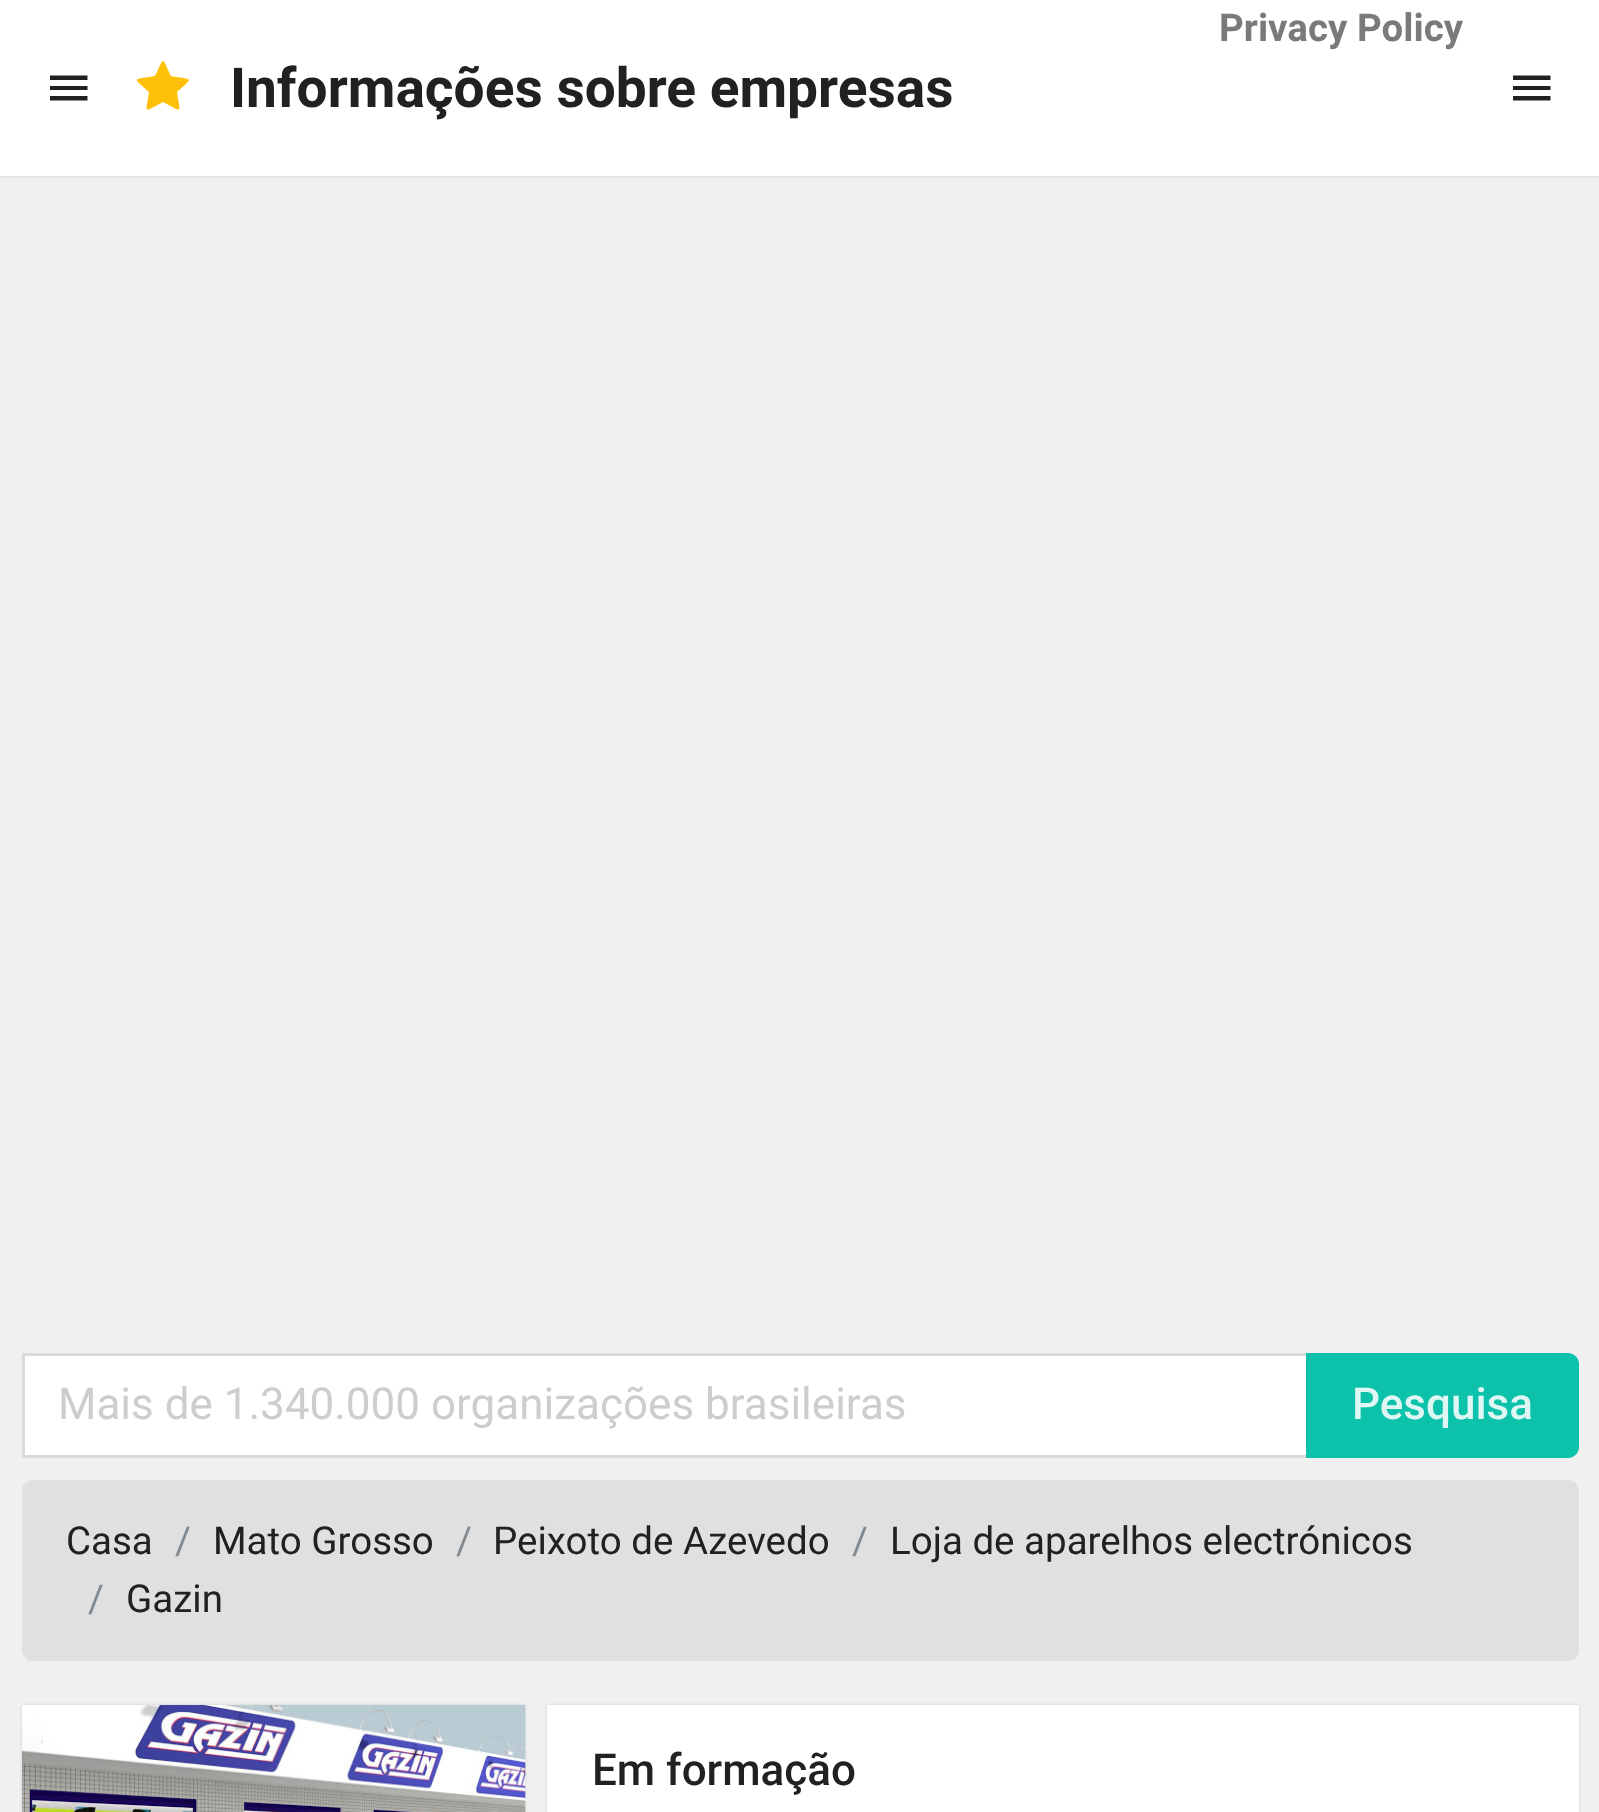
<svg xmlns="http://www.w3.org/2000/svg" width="1599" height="1812">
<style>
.a{font:bold 38.5px Roboto;fill:#7a7a7a}
.b{font:bold 55px Roboto;fill:#212121}
.c{font:44px Roboto;fill:#cccdce}
.d{font:500 44px Roboto;fill:#dff7f4}
.e{font:38.5px Roboto;fill:#212121}
.f{font:38.5px Roboto;fill:#818a91}
.g{font:500 44px Roboto;fill:#212121}
</style>
<rect width="100%" height="100%" fill="#f0f0f0"/>
<path fill="#00000026" filter="blur(1.5px)" d="M0 0h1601v176H0z"/>
<path fill="#fff" d="M0 0h1599v176H0z"/>
<path fill="#212121" d="M50 75.5h37.5v4.5h-37.5zm0 14.5v-4h37.5v4zm0 10.5v-4.5h37.5v4.5z"/>
<path fill="#ffc107" d="M189 80c0-2-15-3-18-4c-10-20-6-20-16 0c-24 4-22 1-6 16c-3 22-7 21 14 10c21 11 17 12 14-10c1-1 12-10 12-12z"/>
<path fill="#212121" d="M1513 75.5h37.5v4.5h-37.5zm0 14.5v-4h37.5v4zm0 10.5v-4.5h37.5v4.5z"/>
<path fill="#fff" stroke="#d8dadc" stroke-width="3" d="M23.5 1354.5h1284v102H23.5z"/>
<path fill="#0cc2aa" d="M1306 1353h262c6 0 11 5 11 11v83c0 6-5 11-11 11h-262z"/>
<rect fill="#e0e0e0" x="22" y="1480" width="1557" height="181" rx="11"/>
<path fill="#00000026" filter="blur(1.5px)" d="M22 1705h503v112H22z"/>
<image href="1.png" x="22" y="1705" width="504" height="107"/>
<path fill="#00000026" filter="blur(1.5px)" d="M547 1705h1032v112H547z"/>
<path fill="#fff" d="M547 1705h1032v107H547z"/>
<text class="a" x="1219" y="41">Privacy Policy</text>
<text class="b" x="230" y="107">Informações sobre empresas</text>
<text class="c" x="58" y="1419">Mais de 1.340.000 organizações brasileiras</text>
<text class="d" x="1352" y="1419">Pesquisa</text>
<text class="e" x="66" y="1554">Casa</text>
<text class="f" x="175" y="1554">/</text>
<text class="e" x="213" y="1554">Mato Grosso</text>
<text class="f" x="456" y="1554">/</text>
<text class="e" x="493" y="1554">Peixoto de Azevedo</text>
<text class="f" x="852" y="1554">/</text>
<text class="e" x="890" y="1554">Loja de aparelhos electrónicos</text>
<text class="f" x="88" y="1612">/</text>
<text class="e" x="126" y="1612">Gazin</text>
<text class="g" x="592" y="1785">Em formação</text>
</svg>
